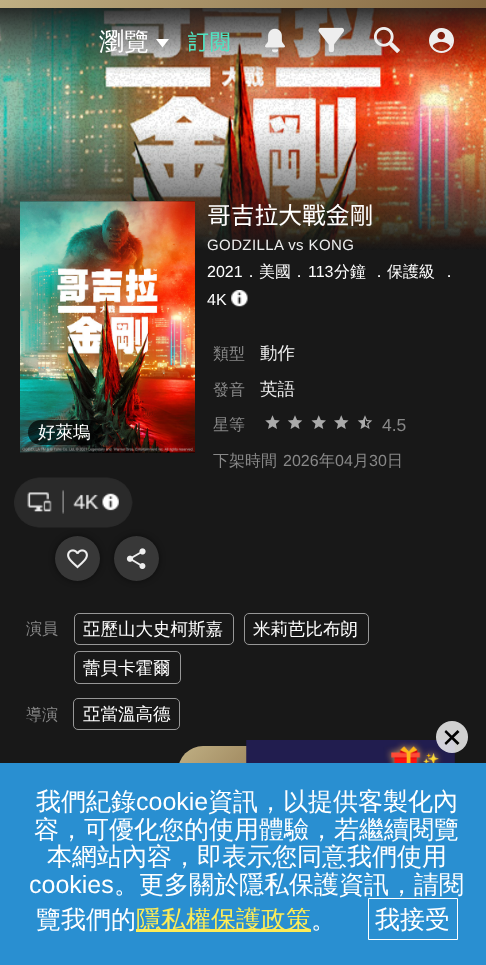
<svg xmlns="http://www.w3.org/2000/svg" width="486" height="965">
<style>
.a{font:500 25px WenQuanYi Zen Hei;fill:#fff}
.b{font:100 22px Noto Sans TC;fill:#50e3c2}
.c{font:500 17.5px WenQuanYi Zen Hei;fill:#fff}
.d{font:100 23.75px Noto Sans TC;fill:#fff}
.e{font:15px Liberation Sans;letter-spacing:0.4px;fill:#eee}
.f{font:16px Liberation Sans;fill:#fff}
.g{font:500 16px WenQuanYi Zen Hei;fill:#fff}
.h{font:500 16px WenQuanYi Zen Hei;fill:#888}
.i{font:500 17.5px WenQuanYi Zen Hei;fill:#eee}
.j{font:17.5px Liberation Sans;fill:#888}
.k{font:16px Liberation Sans;fill:#888}
.l{font:25px Liberation Sans;fill:#fff}
.m{font:500 25px WenQuanYi Zen Hei;fill:#fdec57}
</style>
<defs>
<linearGradient id="g1" gradientUnits="userSpaceOnUse" x1="243" y1="0" x2="243" y2="75"><stop offset="0" stop-color="#181818"/><stop offset="1" stop-color="#181818" stop-opacity="0"/></linearGradient>
<linearGradient id="g2" gradientUnits="userSpaceOnUse" x1="118" y1="-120" x2="368" y2="127"><stop offset="0" stop-color="#c0b084"/><stop offset="1" stop-color="#84663f"/></linearGradient>
<linearGradient id="g3" gradientUnits="userSpaceOnUse" x1="197" y1="726" x2="289" y2="816"><stop offset="0" stop-color="#c0b084"/><stop offset="1" stop-color="#84663f"/></linearGradient>
</defs>
<rect width="100%" height="100%" fill="#181818"/>
<image href="5.png" x="0" y="8" width="486" height="241"/>
<image href="6.png" x="0" y="8" width="486" height="242"/>
<path fill="url(#g1)" d="M0 8h486v65H0z"/>
<path fill="url(#g2)" d="M0 0h486v8H0z"/>
<path fill="#fff" d="M156 39h13l-6.5 8.5z"/>
<image href="1.png" x="265" y="28" width="20" height="25"/>
<image href="2.png" x="318" y="27" width="26" height="26"/>
<image href="3.png" x="374" y="27" width="26" height="26"/>
<image href="4.png" x="429" y="28" width="25" height="25"/>
<path fill="#000" d="M20 201h175v252H20z"/>
<image href="7.png" x="20" y="201" width="175" height="252"/>
<rect fill="#000000b3" x="28" y="420" width="75" height="25" rx="12.5"/>
<rect fill="#00000080" filter="blur(3px)" x="55" y="536" width="45" height="45" rx="22.5"/>
<rect fill="#00000080" filter="blur(3px)" x="114" y="536" width="45" height="45" rx="22.5"/>
<image href="8.png" x="14" y="477" width="119" height="51"/>
<circle fill="#383838" cx="77.5" cy="558.5" r="22.5"/>
<image href="9.png" x="67" y="549" width="21" height="20"/>
<circle fill="#383838" cx="136.5" cy="558.5" r="22.5"/>
<image href="10.png" x="126" y="548" width="20" height="21"/>
<image href="11.png" x="231" y="290" width="17" height="17"/>
<image href="12.png" x="265" y="415" width="15" height="14"/>
<image href="13.png" x="287" y="415" width="16" height="14"/>
<image href="14.png" x="311" y="415" width="15" height="14"/>
<image href="15.png" x="334" y="415" width="15" height="14"/>
<image href="16.png" x="357" y="415" width="16" height="14"/>
<rect fill="none" stroke="#979797" x="74.5" y="613.5" width="159" height="31" rx="4.5"/>
<rect fill="none" stroke="#979797" x="244.5" y="613.5" width="124" height="31" rx="4.5"/>
<rect fill="none" stroke="#979797" x="74.5" y="651.5" width="106" height="32" rx="4.5"/>
<rect fill="none" stroke="#979797" x="73.5" y="698.5" width="106" height="31" rx="4.5"/>
<rect fill="url(#g3)" x="178" y="746" width="131" height="50" rx="25"/>
<image href="17.png" x="246" y="740" width="209" height="23"/>
<circle fill="#ffffffcc" cx="452" cy="737" r="16"/>
<path fill="#000" d="M444.5 743l13-13l2 2l-13.5 13z"/>
<path fill="#000" d="M446 730l13.5 13l-2 2l-13-13z"/>
<path fill="#298fd1" d="M0 763h486v202H0z"/>
<path fill="#fdec57" d="M136 929h175v3H136z"/>
<path fill="none" stroke="#fff" d="M368.5 898.5h89v41H368.5z"/>
<text class="a" x="99" y="50">瀏覽</text>
<text class="b" x="187" y="50">訂閱</text>
<text class="c" x="38" y="438">好萊塢</text>
<text class="d" x="207" y="224">哥吉拉大戰金剛</text>
<text class="e" x="207" y="250">GODZILLA vs KONG</text>
<text class="f" x="207" y="277">2021</text>
<text class="g" x="243" y="277">．美國．</text>
<text class="f" x="308" y="277">113</text>
<text class="g" x="334" y="277">分鐘</text>
<text class="g" x="371" y="277">．保護級</text>
<text class="g" x="441" y="277">．</text>
<text class="f" x="207" y="305">4K</text>
<text class="h" x="213" y="359">類型</text>
<text class="i" x="260" y="359">動作</text>
<text class="h" x="213" y="395">發音</text>
<text class="i" x="260" y="395">英語</text>
<text class="h" x="213" y="430">星等</text>
<text class="j" x="382" y="431">4.5</text>
<text class="h" x="213" y="466">下架時間</text>
<text class="k" x="283" y="466">2026</text>
<text class="h" x="319" y="466">年</text>
<text class="k" x="335" y="466">04</text>
<text class="h" x="353" y="466">月</text>
<text class="k" x="369" y="466">30</text>
<text class="h" x="387" y="466">日</text>
<text class="h" x="26" y="634">演員</text>
<text class="c" x="83" y="635">亞歷山大史柯斯嘉</text>
<text class="c" x="253" y="635">米莉芭比布朗</text>
<text class="c" x="83" y="674">蕾貝卡霍爾</text>
<text class="h" x="26" y="720">導演</text>
<text class="c" x="83" y="720">亞當溫高德</text>
<text class="a" x="36" y="810">我們紀錄</text>
<text class="l" x="136" y="810">cookie</text>
<text class="a" x="208" y="810">資訊，以提供客製化內</text>
<text class="a" x="34" y="838">容，可優化您的使用體驗，若繼續閱覽</text>
<text class="a" x="47" y="865">本網站內容，即表示您同意我們使用</text>
<text class="l" x="29" y="893">cookies</text>
<text class="a" x="114" y="893">。更多關於隱私保護資訊，請閱</text>
<text class="a" x="36" y="928">覽我們的</text>
<text class="m" x="136" y="928">隱私權保護政策</text>
<text class="a" x="311" y="928">。</text>
<text class="a" x="375" y="928">我接受</text>
</svg>
